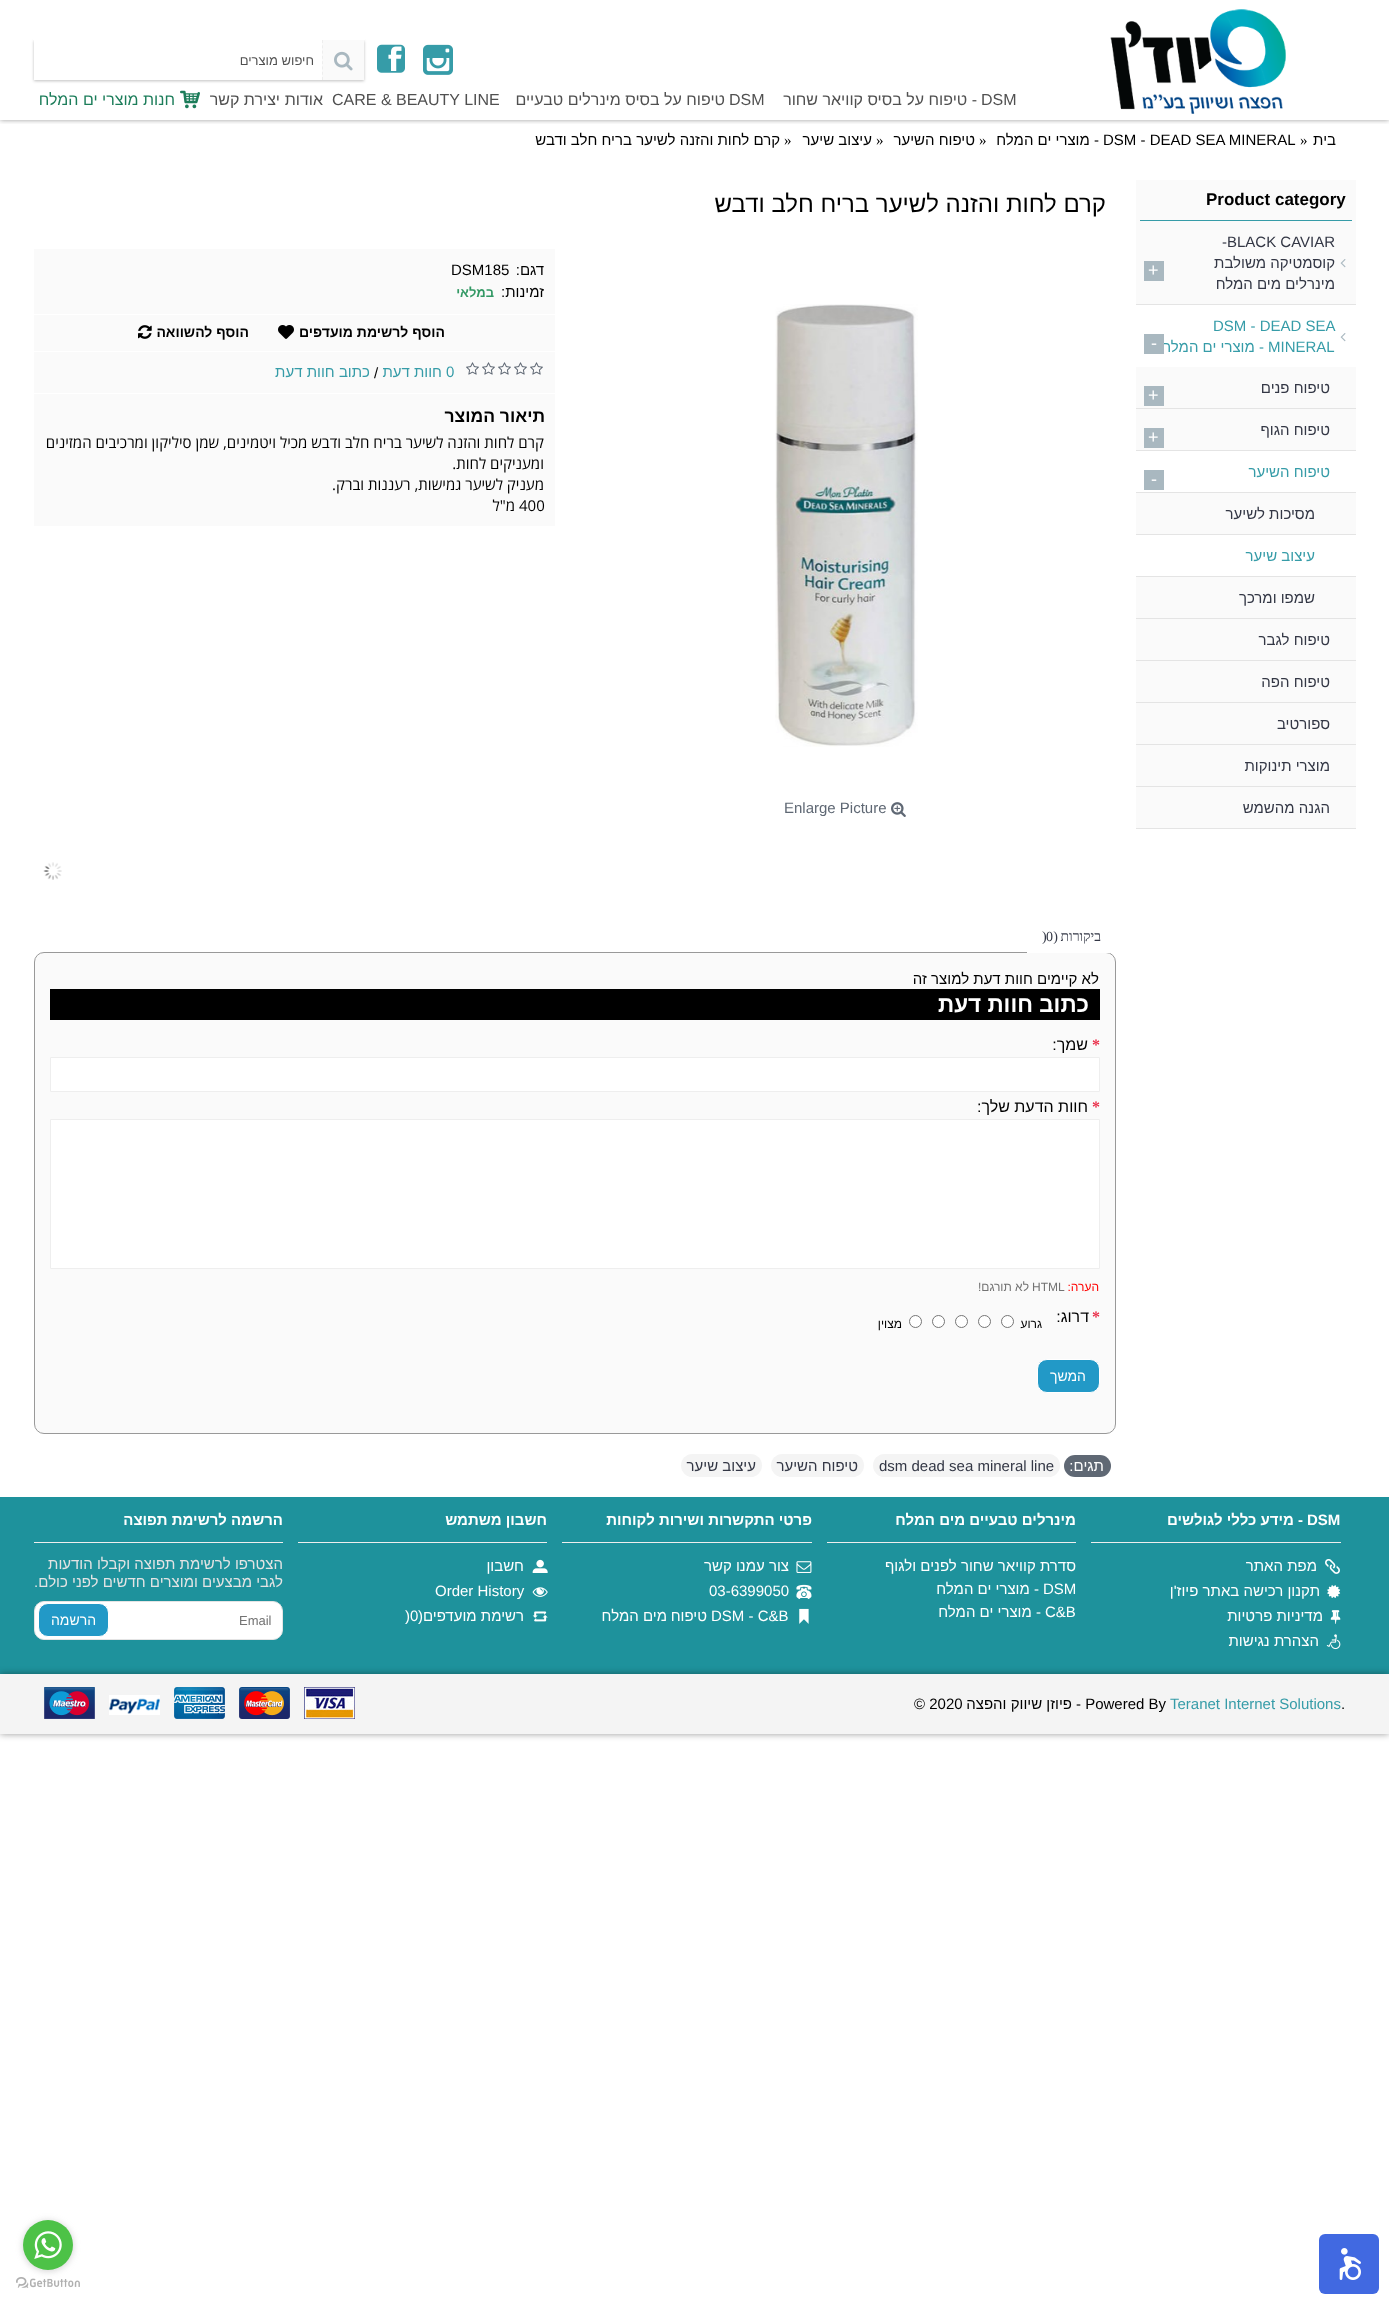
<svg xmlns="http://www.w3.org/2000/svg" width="1389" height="2304">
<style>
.a{font:13px Liberation Sans;direction:rtl;fill:#505050}
.b{font:16px Liberation Sans;fill:#505050}
.c{font:16px Liberation Sans;direction:rtl;fill:#505050}
.d{font:16px Liberation Sans;direction:rtl;fill:#1c7d5a}
.e{font:15px Liberation Sans;direction:rtl;fill:#000}
.f{font:15px Liberation Serif;fill:#000}
.g{font:15px Liberation Sans;fill:#000}
.h{font:bold 17px Liberation Sans;fill:#000}
.i{font:15px Liberation Sans;fill:#333745}
.j{font:15px Liberation Sans;direction:rtl;fill:#333745}
.k{font:18px Liberation Sans;fill:#fff}
.l{font:15px Liberation Sans;fill:#369ca8}
.m{font:15px Liberation Sans;direction:rtl;fill:#369ca8}
.n{font:24px Liberation Sans;direction:rtl;fill:#000}
.o{font:bold 13px Liberation Sans;direction:rtl;fill:#339965}
.p{font:bold 14px Liberation Sans;direction:rtl;fill:#000}
.q{font:bold 17.5px Liberation Sans;direction:rtl;fill:#000}
.r{font:15px Open Sans;direction:rtl;fill:#000}
.s{font:15px Open Sans;fill:#000}
.t{font:15px Liberation Sans;fill:#5f6874}
.u{font:14px Liberation Serif;direction:rtl;fill:#333745}
.v{font:14px Liberation Serif;fill:#333745}
.w{font:bold 22.5px Liberation Sans;direction:rtl;fill:#fff}
.x{font:bold 16px Liberation Serif;fill:#ea2e49}
.y{font:16px Liberation Sans;direction:rtl;fill:#000}
.z{font:12px Liberation Sans;direction:rtl;fill:#f00}
.a1{font:12px Liberation Sans;fill:#737373}
.b1{font:12px Liberation Sans;direction:rtl;fill:#737373}
.c1{font:12px Liberation Sans;direction:rtl;fill:#000}
.d1{font:14px Liberation Sans;direction:rtl;fill:#fff}
.e1{font:15px Liberation Sans;direction:rtl;fill:#fff}
.f1{font:bold 15px Liberation Sans;fill:#fff}
.g1{font:bold 15px Liberation Sans;direction:rtl;fill:#fff}
.h1{font:15px Liberation Sans;fill:#fff}
.i1{font:15px Liberation Sans;direction:rtl;fill:#e4e4e4}
.j1{font:13px Liberation Sans;fill:#737373}
</style>
<defs>
<clipPath id="clip1"><path d="M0 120h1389v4H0z"/></clipPath>
<clipPath id="clip2"><path d="M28 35h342v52h-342zm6 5h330v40h-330z" clip-rule="evenodd"/></clipPath>
</defs>
<rect width="100%" height="100%" fill="#fff"/>
<g clip-path="url(#clip1)">
<path fill="#00000066" filter="blur(2.5px)" d="M0 0h1389v120H0z"/>
</g>
<g clip-path="url(#clip2)">
<path fill="#00000040" filter="blur(1.5px)" d="M34 41h330v40H34z"/>
</g>
<path fill="#fff" d="M33 38h332v2H33z"/>
<image href="1.png" x="1110" y="9" width="176" height="105"/>
<image href="2.png" x="423" y="44" width="30" height="31"/>
<image href="3.png" x="377" y="44" width="28" height="29"/>
<path fill="#fafafa" d="M322 40h42v40H322z"/>
<path fill="none" stroke="#eee" stroke-dasharray="3 2.29" d="M322.5 40v40"/>
<image href="4.png" x="334" y="51" width="19" height="20"/>
<image href="5.png" x="180" y="90" width="20" height="19"/>
<path fill="#fafafa" d="M1136 180h220v648H1136z"/>
<path fill="#369ca8" d="M1140 220h212v1H1140z"/>
<path fill="#e4e4e4" d="M1136 304h220v1H1136z"/>
<image href="6.png" x="1340" y="259" width="6" height="9"/>
<path fill="#a9b8c0" d="M1144 261h20v20H1144z"/>
<path fill="#fff" d="M1136 305h220v62H1136z"/>
<image href="7.png" x="1340" y="333" width="6" height="9"/>
<path fill="#e4e4e4" d="M1136 408h220v1H1136z"/>
<path fill="#a9b8c0" d="M1144 386h20v20H1144z"/>
<path fill="#e4e4e4" d="M1136 450h220v1H1136z"/>
<path fill="#a9b8c0" d="M1144 428h20v20H1144z"/>
<path fill="#fff" d="M1136 451h220v41H1136z"/>
<path fill="#e4e4e4" d="M1136 492h220v1H1136z"/>
<path fill="#a9b8c0" d="M1144 470h20v20H1144z"/>
<path fill="#e4e4e4" d="M1136 534h220v1H1136z"/>
<path fill="#fff" d="M1136 535h220v41H1136z"/>
<path fill="#e4e4e4" d="M1136 576h220v1H1136z"/>
<path fill="#e4e4e4" d="M1136 618h220v1H1136z"/>
<path fill="#e4e4e4" d="M1136 660h220v1H1136z"/>
<path fill="#e4e4e4" d="M1136 702h220v1H1136z"/>
<path fill="#e4e4e4" d="M1136 744h220v1H1136z"/>
<path fill="#e4e4e4" d="M1136 786h220v1H1136z"/>
<path fill="#e4e4e4" d="M1136 828h220v1H1136z"/>
<path fill="#fafafa" d="M34 249h521v65H34z"/>
<path fill="#fafafa" d="M34 315h521v36H34z"/>
<image href="8.png" x="278" y="325" width="16" height="14"/>
<image href="9.png" x="138" y="325" width="14" height="14"/>
<path fill="#fafafa" d="M34 352h521v41H34z"/>
<image href="10.png" x="530" y="362" width="13" height="13"/>
<image href="10.png" x="514" y="362" width="13" height="13"/>
<image href="10.png" x="498" y="362" width="13" height="13"/>
<image href="10.png" x="482" y="362" width="13" height="13"/>
<image href="10.png" x="466" y="362" width="13" height="13"/>
<path fill="#fafafa" d="M34 394h521v132H34z"/>
<image href="11.png" x="775" y="304" width="143" height="443"/>
<image href="12.png" x="891" y="802" width="15" height="15"/>
<image href="13.png" x="43" y="862" width="19" height="18"/>
<rect fill="#fafafa" stroke="#999" x="34.5" y="952.5" width="1081" height="481" rx="9.5"/>
<path fill="#fff" d="M1027 952h83v1H1027z"/>
<path fill="#000" d="M50 989h1050v31H50z"/>
<path fill="#fff" stroke="#eee" d="M50.5 1057.5h1049v34H50.5z"/>
<path fill="#fff" stroke="#eee" d="M50.5 1119.5h1049v149H50.5z"/>
<circle fill="#fff" stroke="#767676" cx="1007.5" cy="1321.5" r="6"/>
<circle fill="#fff" stroke="#767676" cx="984.5" cy="1321.5" r="6"/>
<circle fill="#fff" stroke="#767676" cx="961.5" cy="1321.5" r="6"/>
<circle fill="#fff" stroke="#767676" cx="938.5" cy="1321.5" r="6"/>
<circle fill="#fff" stroke="#767676" cx="915.5" cy="1321.5" r="6"/>
<rect fill="#2299c7" stroke="#fff" x="1037.5" y="1359.5" width="62" height="33" rx="9.5"/>
<rect fill="#5f6874" x="1064" y="1455" width="47" height="22" rx="11"/>
<rect fill="#f4f4f4" x="873" y="1454" width="187" height="23" rx="11.5"/>
<rect fill="#f4f4f4" x="771" y="1454" width="93" height="23" rx="11.5"/>
<rect fill="#f4f4f4" x="681" y="1454" width="81" height="23" rx="11.5"/>
<path fill="#1e929c" d="M0 1497h1389v177H0z"/>
<path fill="#eee" d="M1091 1542h250v1H1091z"/>
<image href="14.png" x="1325" y="1559" width="15" height="15"/>
<image href="15.png" x="1327" y="1585" width="14" height="13"/>
<image href="16.png" x="1330" y="1610" width="11" height="14"/>
<image href="17.png" x="1326" y="1634" width="15" height="16"/>
<path fill="#eee" d="M827 1542h249v1H827z"/>
<path fill="#eee" d="M562 1542h250v1H562z"/>
<image href="18.png" x="796" y="1561" width="16" height="12"/>
<image href="19.png" x="796" y="1584" width="16" height="15"/>
<image href="20.png" x="799" y="1608" width="10" height="16"/>
<path fill="#eee" d="M298 1542h249v1H298z"/>
<image href="21.png" x="532" y="1559" width="16" height="14"/>
<image href="22.png" x="532" y="1587" width="16" height="10"/>
<image href="23.png" x="532" y="1611" width="16" height="11"/>
<path fill="#eee" d="M34 1542h249v1H34z"/>
<rect fill="#fff" stroke="#e4e4e4" x="34.5" y="1601.5" width="248" height="38" rx="9.5"/>
<rect fill="#2299c7" stroke="#fff" x="38.5" y="1603.5" width="70" height="33" rx="9.5"/>
<path fill="#00000066" filter="blur(3.5px)" d="M0 1674h1389v60H0z"/>
<path fill="#f4f4f4" d="M0 1674h1389v60H0z"/>
<image href="24.png" x="304" y="1687" width="51" height="32"/>
<image href="25.png" x="239" y="1687" width="51" height="32"/>
<image href="26.png" x="174" y="1687" width="51" height="32"/>
<image href="27.png" x="109" y="1695" width="51" height="20"/>
<image href="28.png" x="44" y="1687" width="51" height="32"/>
<rect fill="#4169e1" x="1319" y="2234" width="60" height="60" rx="6"/>
<image href="29.png" x="1339" y="2248" width="22" height="32"/>
<image href="31.png" x="16" y="2277" width="64" height="11"/>
<rect fill="#88888866" filter="blur(3.5px)" x="23" y="2221" width="50" height="50" rx="25"/>
<circle fill="#4dc247" cx="48" cy="2245" r="25"/>
<image href="30.png" x="34" y="2231" width="28" height="28"/>
<text class="a" x="314" y="65">חיפוש מוצרים</text>
<text class="b" x="981" y="105">DSM</text>
<text class="c" x="977" y="105">- טיפוח על בסיס קוויאר שחור</text>
<text class="b" x="729" y="105">DSM</text>
<text class="c" x="725" y="105">טיפוח על בסיס מינרלים טבעיים</text>
<text class="b" x="332" y="105">CARE &amp; BEAUTY LINE</text>
<text class="c" x="323" y="105">אודות</text>
<text class="c" x="280" y="105">יצירת קשר</text>
<text class="d" x="175" y="105">חנות מוצרי ים המלח</text>
<text class="e" x="1336" y="145">בית</text>
<text class="f" x="1300" y="145">»</text>
<text class="g" x="1103" y="145">DSM - DEAD SEA MINERAL</text>
<text class="e" x="1099" y="145">- מוצרי ים המלח</text>
<text class="f" x="979" y="145">»</text>
<text class="e" x="975" y="145">טיפוח השיער</text>
<text class="f" x="876" y="145">»</text>
<text class="e" x="872" y="145">עיצוב שיער</text>
<text class="f" x="784" y="145">»</text>
<text class="e" x="780" y="145">קרם לחות והזנה לשיער בריח חלב ודבש</text>
<text class="h" x="1206" y="205">Product category</text>
<text class="i" x="1222" y="247">-BLACK CAVIAR</text>
<text class="j" x="1335" y="268">קוסמטיקה משולבת</text>
<text class="j" x="1335" y="289">מינרלים מים המלח</text>
<text class="k" x="1148" y="276">+</text>
<text class="l" x="1213" y="331">DSM - DEAD SEA</text>
<text class="l" x="1268" y="352">MINERAL</text>
<text class="m" x="1264" y="352">- מוצרי ים המלח</text>
<path fill="#a9b8c0" d="M1144 334h20v20H1144z"/>
<text class="k" x="1151" y="349">-</text>
<text class="j" x="1330" y="393">טיפוח פנים</text>
<text class="k" x="1148" y="401">+</text>
<text class="j" x="1330" y="435">טיפוח הגוף</text>
<text class="k" x="1148" y="443">+</text>
<text class="m" x="1330" y="477">טיפוח השיער</text>
<text class="k" x="1151" y="485">-</text>
<text class="j" x="1315" y="519">מסיכות לשיער</text>
<text class="m" x="1315" y="561">עיצוב שיער</text>
<text class="j" x="1315" y="603">שמפו ומרכך</text>
<text class="j" x="1330" y="645">טיפוח לגבר</text>
<text class="j" x="1330" y="687">טיפוח הפה</text>
<text class="j" x="1330" y="729">ספורטיב</text>
<text class="j" x="1330" y="771">מוצרי תינוקות</text>
<text class="j" x="1330" y="813">הגנה מהשמש</text>
<text class="n" x="1106" y="212">קרם לחות והזנה לשיער בריח חלב ודבש</text>
<text class="e" x="544" y="275">דגם:</text>
<text class="g" x="451" y="275">DSM185</text>
<text class="e" x="544" y="297">זמינות:</text>
<text class="o" x="494" y="297">במלאי</text>
<text class="p" x="445" y="337">הוסף לרשימת מועדפים</text>
<text class="p" x="249" y="337">הוסף להשוואה</text>
<text class="l" x="446" y="377">0</text>
<text class="m" x="442" y="377">חוות דעת</text>
<text class="g" x="374" y="378">/</text>
<text class="m" x="370" y="377">כתוב חוות דעת</text>
<text class="q" x="545" y="422">תיאור המוצר</text>
<text class="r" x="544" y="448">קרם לחות והזנה לשיער בריח חלב ודבש מכיל ויטמינים, שמן סיליקון ומרכיבים המזינים</text>
<text class="r" x="544" y="469">ומעניקים לחות.</text>
<text class="r" x="544" y="490">מעניק לשיער גמישות, רעננות וברק.</text>
<text class="s" x="519" y="511">400</text>
<text class="r" x="515" y="511">מ"ל</text>
<text class="t" x="784" y="813">Enlarge Picture</text>
<text class="u" x="1101" y="941" word-spacing="-1">ביקורות (</text>
<text class="v" x="1046" y="941">0</text>
<text class="v" x="1042" y="941">)</text>
<text class="e" x="1099" y="984">לא קיימים חוות דעת למוצר זה</text>
<text class="w" x="1089" y="1012">כתוב חוות דעת</text>
<text class="x" x="1092" y="1050">*</text>
<text class="y" x="1088" y="1050">שמך:</text>
<text class="x" x="1092" y="1112">*</text>
<text class="y" x="1088" y="1112">חוות הדעת שלך:</text>
<text class="z" x="1099" y="1291">הערה:</text>
<text class="a1" x="1032" y="1291">HTML</text>
<text class="b1" x="1029" y="1291">לא תורגם!</text>
<text class="x" x="1092" y="1322">*</text>
<text class="y" x="1089" y="1322">דרוג:</text>
<text class="c1" x="1042" y="1328">גרוע</text>
<text class="c1" x="902" y="1328">מצוין</text>
<text class="d1" x="1086" y="1381">המשך</text>
<text class="e1" x="1104" y="1471">תגים:</text>
<text class="i" x="879" y="1471">dsm dead sea mineral line</text>
<text class="j" x="858" y="1471">טיפוח השיער</text>
<text class="j" x="756" y="1471">עיצוב שיער</text>
<text class="f1" x="1307" y="1525">DSM</text>
<text class="g1" x="1303" y="1525">- מידע כללי לגולשים</text>
<text class="e1" x="1317" y="1571">מפת האתר</text>
<text class="e1" x="1320" y="1596">תקנון רכישה באתר פיוז'ן</text>
<text class="e1" x="1323" y="1621">מדיניות פרטיות</text>
<text class="e1" x="1319" y="1646">הצהרת נגישות</text>
<text class="g1" x="1076" y="1525">מינרלים טבעיים מים המלח</text>
<text class="e1" x="1076" y="1571">סדרת קוויאר שחור לפנים ולגוף</text>
<text class="h1" x="1043" y="1594">DSM</text>
<text class="e1" x="1039" y="1594">- מוצרי ים המלח</text>
<text class="h1" x="1045" y="1617">C&amp;B</text>
<text class="e1" x="1041" y="1617">- מוצרי ים המלח</text>
<text class="g1" x="812" y="1525">פרטי התקשרות ושירות לקוחות</text>
<text class="e1" x="789" y="1571">צור עמנו קשר</text>
<text class="h1" x="709" y="1596">03-6399050</text>
<text class="h1" x="711" y="1621">DSM - C&amp;B</text>
<text class="e1" x="707" y="1621">טיפוח</text>
<text class="e1" x="667" y="1621">מים המלח</text>
<text class="g1" x="547" y="1525">חשבון משתמש</text>
<text class="e1" x="524" y="1571">חשבון</text>
<text class="h1" x="435" y="1596">Order History</text>
<text class="e1" x="524" y="1621">רשימת מועדפים(</text>
<text class="h1" x="410" y="1621">0</text>
<text class="h1" x="405" y="1621">)</text>
<text class="g1" x="283" y="1525">הרשמה לרשימת תפוצה</text>
<text class="i1" x="283" y="1569">הצטרפו לרשימת תפוצה וקבלו הודעות</text>
<text class="i1" x="283" y="1587">לגבי מבצעים ומוצרים חדשים לפני כולם.</text>
<text class="j1" x="239" y="1625">Email</text>
<text class="d1" x="96" y="1625">הרשמה</text>
<text class="g" x="1341" y="1709">.</text>
<text class="l" x="1170" y="1709">Teranet Internet Solutions</text>
<text class="g" x="1076" y="1709">- Powered By</text>
<text class="e" x="1072" y="1709">פיוזן שיווק והפצה</text>
<text class="g" x="914" y="1709">© 2020</text>
</svg>
